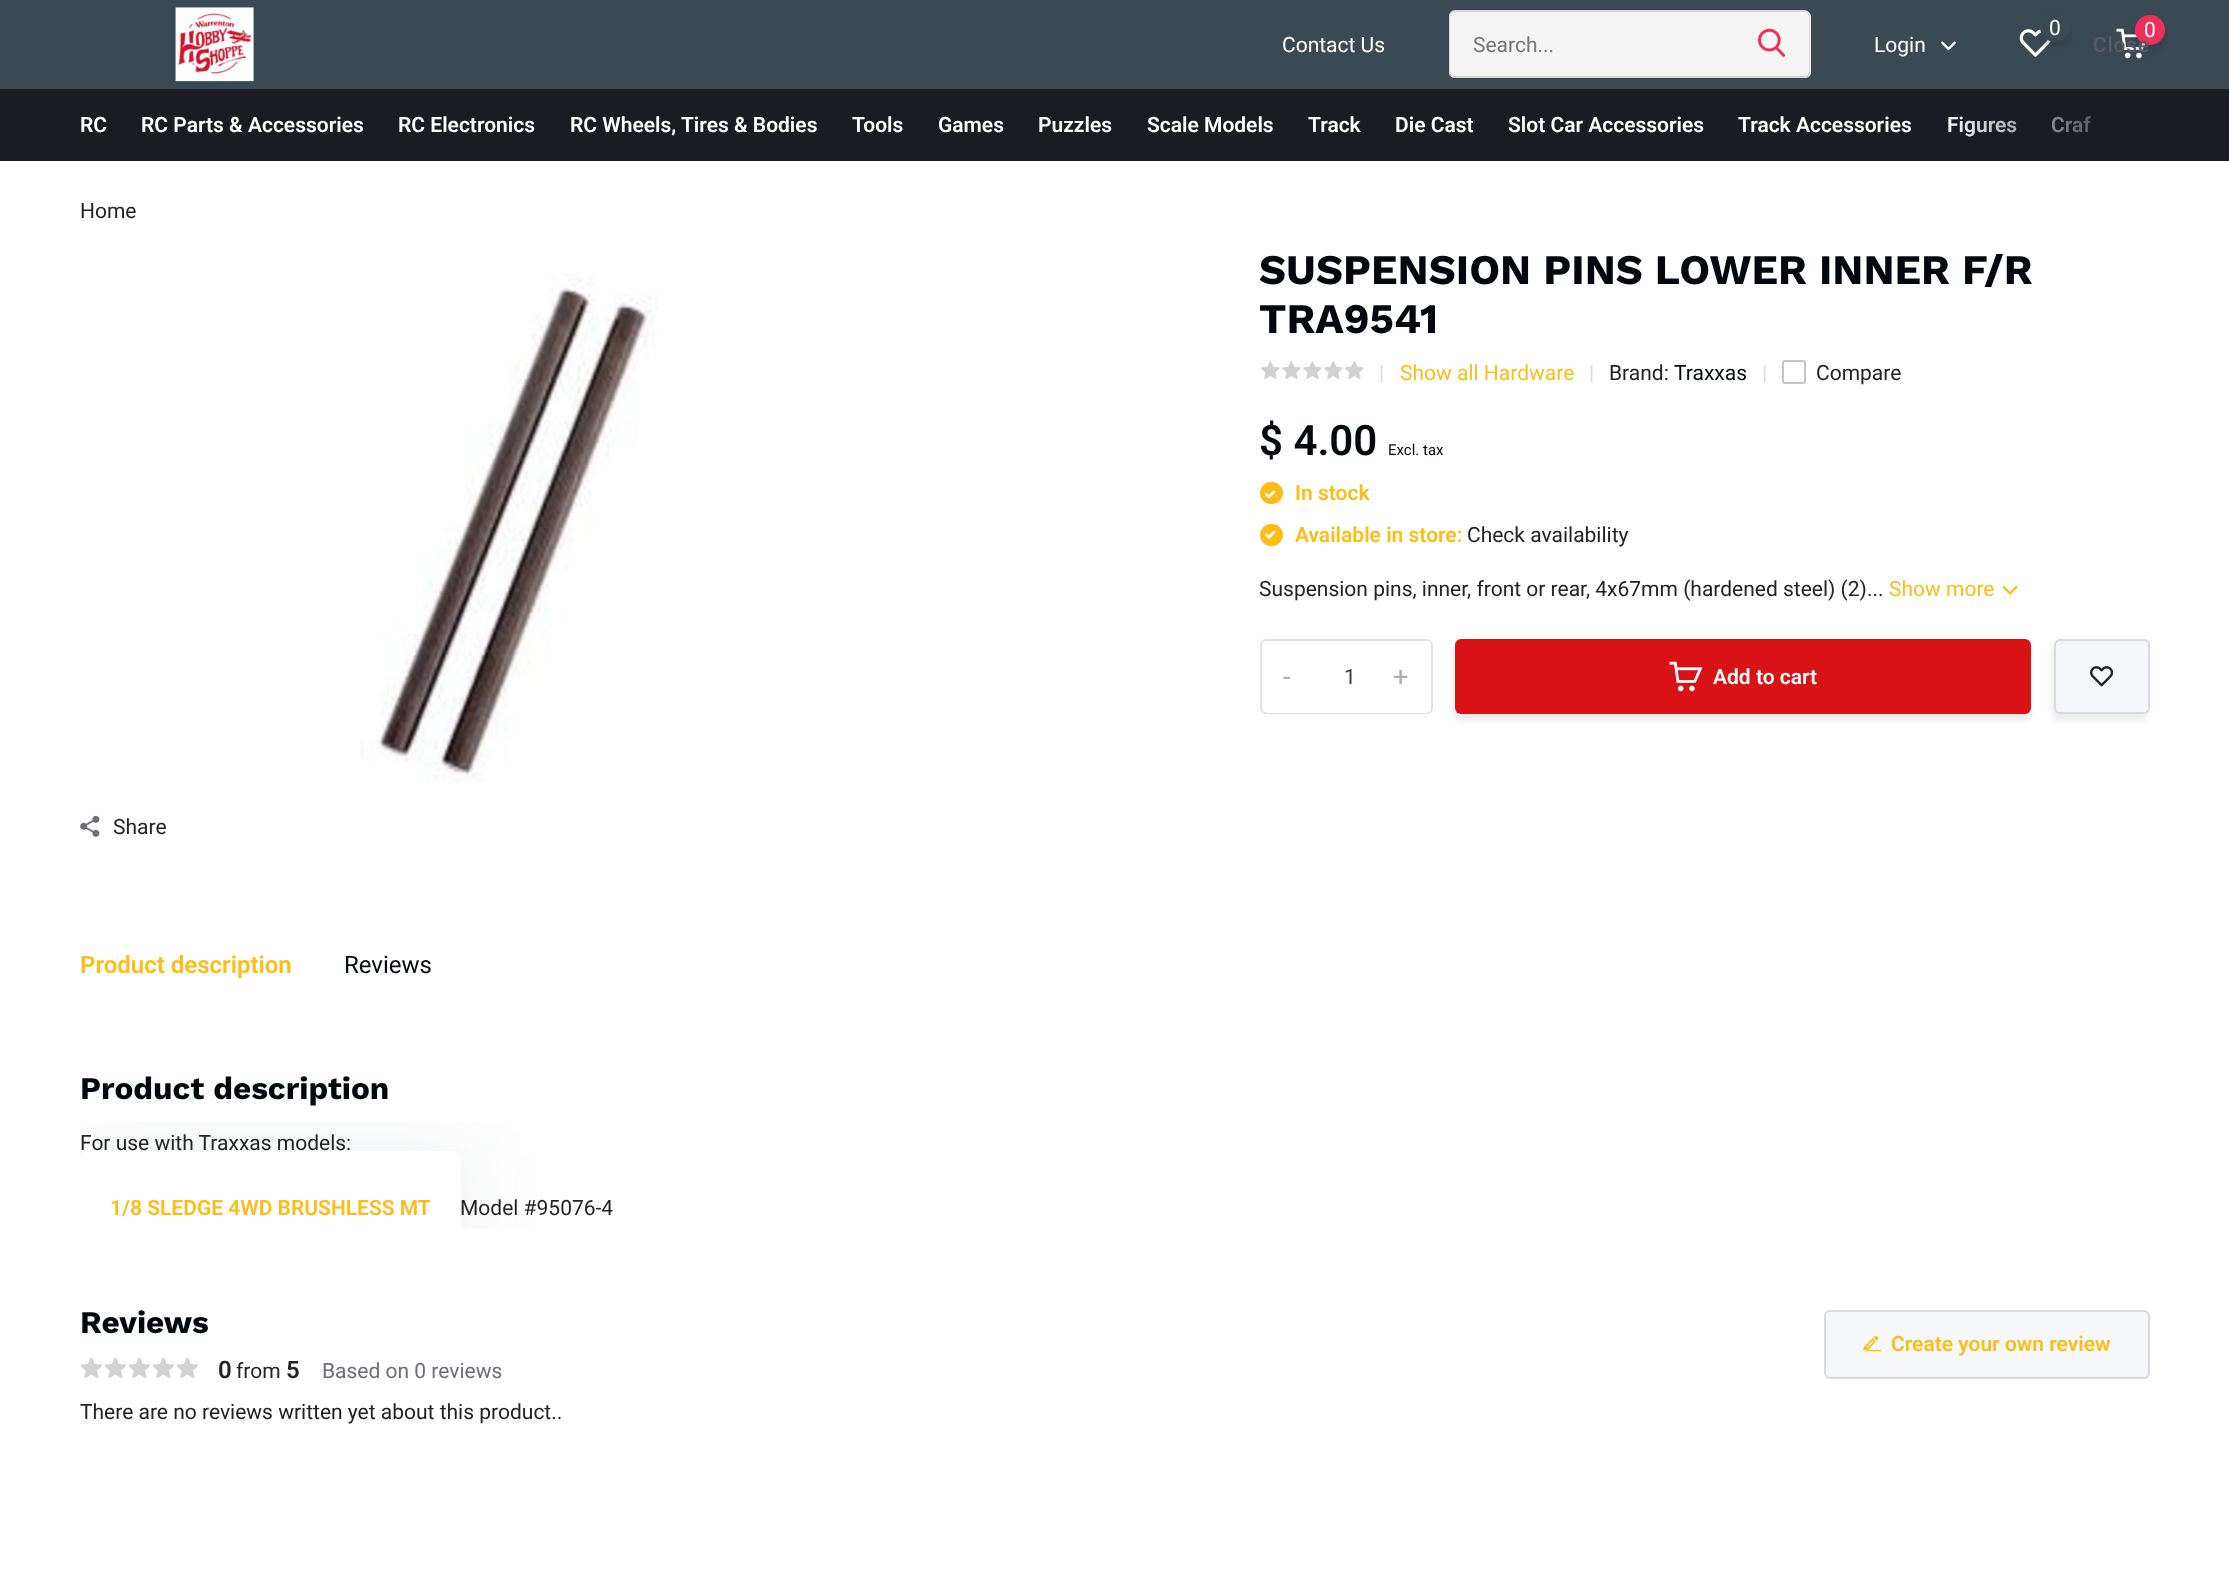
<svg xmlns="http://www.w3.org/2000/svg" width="2229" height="1573">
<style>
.a{font:21px Roboto;fill:#fff}
.b{font:21px Roboto;fill:#757575}
.c{font:500 21px Roboto;letter-spacing:0.75px;fill:#575b66}
.d{font:600 21px Roboto;fill:#fff}
.e{font:21px Roboto;fill:#232323}
.f{font:bold 42px Work Sans;fill:#03080e}
.g{font:21px Roboto;fill:#dadada}
.h{font:21px Roboto;fill:#fdbd17}
.i{font:21px Roboto;fill:#03080e}
.j{font:600 42px Roboto;fill:#03080e}
.k{font:15px Roboto;fill:#03080e}
.l{font:600 21px Roboto;fill:#fdbd17}
.m{font:21px Roboto;fill:#303c43}
.n{font:27px Roboto;fill:#adadba}
.o{font:600 24px Roboto;fill:#fdbd17}
.p{font:24px Roboto;fill:#03080e}
.q{font:bold 31.5px Work Sans;fill:#03080e}
.r{font:600 24px Roboto;fill:#232323}
.s{font:21px Roboto;fill:#6c6c7c}
</style>
<defs>
<clipPath id="clip1"><path d="M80 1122h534v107H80z"/></clipPath>
<linearGradient id="g1" gradientUnits="userSpaceOnUse" x1="2150" y1="125" x2="1943" y2="125"><stop offset="0" stop-color="#1a1c22"/><stop offset="1" stop-color="#1a1c22" stop-opacity="0"/></linearGradient>
</defs>
<rect width="100%" height="100%" fill="#fff"/>
<path fill="#394a54" d="M0 0h2229v89H0z"/>
<image href="1.png" x="175" y="7" width="79" height="75"/>
<image href="2.png" x="2019" y="29" width="32" height="28"/>
<rect fill="#28283040" filter="blur(3px)" x="2040" y="18" width="30" height="30" rx="15"/>
<circle fill="#394a54" cx="2055" cy="27" r="15"/>
<image href="3.png" x="2116" y="28" width="30" height="31"/>
<rect fill="#28283040" filter="blur(3px)" x="2135" y="21" width="30" height="30" rx="15"/>
<circle fill="#ee2f5a" cx="2150" cy="30" r="15"/>
<path fill="#f5f5f5" d="M1455 11h281v67h-281c-3.5 0-6-2.5-6-6v-55c0-3.5 2.5-6 6-6z"/>
<path fill="#d4d4d4" fill-rule="evenodd" d="M1455 10h281v68h-281c-3 0-6-3-6-6v-56c0-3 3-6 6-6zm0 2h281v64h-281c-2 0-5-2-5-4v-56c0-2 3-4 5-4z"/>
<path fill="#f5f5f5" d="M1736 11h69c3.5 0 6 2.5 6 6v55c0 3.5-2.5 6-6 6h-69z"/>
<path fill="#d4d4d4" fill-rule="evenodd" d="M1736 10h68c4 0 6 3 6 6v56c0 3-2 6-6 6h-68zm0 2h68c3 0 5 2 5 4v56c0 2-2 4-5 4h-68z"/>
<image href="4.png" x="1758" y="28" width="28" height="29"/>
<image href="5.png" x="1941" y="41" width="15" height="10"/>
<path fill="#1a1c22" d="M0 89h2229v72H0z"/>
<image href="6.png" x="1261" y="361" width="19" height="18"/>
<image href="6.png" x="1282" y="361" width="19" height="18"/>
<image href="6.png" x="1303" y="361" width="19" height="18"/>
<image href="6.png" x="1324" y="361" width="19" height="18"/>
<image href="6.png" x="1345" y="361" width="19" height="18"/>
<rect fill="none" stroke="#c4c4c4" stroke-width="2" x="1783" y="361" width="22" height="22" rx="2"/>
<rect fill="#fdbd17" x="1260" y="482" width="23" height="22" rx="11"/>
<image href="7.png" x="1264" y="490" width="12" height="9"/>
<rect fill="#fdbd17" x="1260" y="524" width="23" height="22" rx="11"/>
<image href="8.png" x="1264" y="530" width="12" height="9"/>
<image href="9.png" x="2002" y="586" width="16" height="9"/>
<rect fill="none" stroke="#e2e2e2" stroke-width="2" x="1261" y="640" width="171" height="73" rx="5"/>
<rect fill="#fff" x="1262" y="641" width="169" height="72" rx="6"/>
<rect fill="#00000014" filter="blur(3px)" x="1454" y="645" width="576" height="75" rx="6"/>
<rect fill="#d91215" x="1455" y="639" width="576" height="75" rx="6"/>
<image href="10.png" x="1669" y="661" width="34" height="31"/>
<rect fill="#00000014" filter="blur(3px)" x="2052" y="645" width="96" height="75" rx="6"/>
<rect fill="#f5f7fa" stroke="#dadada" stroke-width="2" x="2055" y="640" width="94" height="73" rx="5"/>
<image href="11.png" x="2090" y="666" width="24" height="21"/>
<image href="12.png" x="360" y="273" width="298" height="510"/>
<image href="13.png" x="80" y="815" width="20" height="22"/>
<g clip-path="url(#clip1)">
<rect fill="#263f4d1a" filter="blur(37.5px)" x="83" y="1154" width="381" height="99" rx="9"/>
</g>
<path fill="#fff" d="M89 1151h363c5 0 9 4 9 9v69h-381v-69c0-5 4-9 9-9z"/>
<rect fill="#f5f7fa" stroke="#dadada" stroke-width="2" x="1825" y="1311" width="324" height="67" rx="5"/>
<image href="14.png" x="1863" y="1336" width="18" height="16"/>
<image href="15.png" x="80" y="1357" width="22" height="21"/>
<image href="15.png" x="104" y="1357" width="22" height="21"/>
<image href="15.png" x="128" y="1357" width="22" height="21"/>
<image href="15.png" x="152" y="1357" width="22" height="21"/>
<image href="15.png" x="176" y="1357" width="22" height="21"/>
<text class="a" x="2049" y="35">0</text>
<text class="a" x="2144" y="37">0</text>
<text class="a" x="1282" y="52">Contact Us</text>
<text class="b" x="1473" y="52">Search...</text>
<text class="a" x="1874" y="52">Login</text>
<text class="c" x="2093" y="52">Close</text>
<text class="d" x="80" y="132">RC</text>
<text class="d" x="141" y="132">RC Parts &amp; Accessories</text>
<text class="d" x="398" y="132">RC Electronics</text>
<text class="d" x="570" y="132">RC Wheels, Tires &amp; Bodies</text>
<text class="d" x="852" y="132">Tools</text>
<text class="d" x="938" y="132">Games</text>
<text class="d" x="1038" y="132">Puzzles</text>
<text class="d" x="1147" y="132">Scale Models</text>
<text class="d" x="1308" y="132">Track</text>
<text class="d" x="1395" y="132">Die Cast</text>
<text class="d" x="1508" y="132">Slot Car Accessories</text>
<text class="d" x="1738" y="132">Track Accessories</text>
<text class="d" x="1947" y="132">Figures</text>
<text class="d" x="2051" y="132">Craf</text>
<path fill="url(#g1)" d="M1948 116h144v21H1948z"/>
<text class="e" x="80" y="218">Home</text>
<text class="f" x="1259" y="284">SUSPENSION PINS LOWER INNER F/R</text>
<text class="f" x="1259" y="333">TRA9541</text>
<text class="g" x="1379" y="380">|</text>
<text class="h" x="1400" y="380">Show all Hardware</text>
<text class="g" x="1589" y="380">|</text>
<text class="e" x="1609" y="380">Brand:</text>
<text class="i" x="1674" y="380">Traxxas</text>
<text class="g" x="1762" y="380">|</text>
<text class="e" x="1816" y="380">Compare</text>
<text class="j" x="1259" y="455">$ 4.00</text>
<text class="k" x="1388" y="455">Excl. tax</text>
<text class="l" x="1295" y="500">In stock</text>
<text class="l" x="1295" y="542">Available in store:</text>
<text class="e" x="1467" y="542">Check availability</text>
<text class="e" x="1259" y="596">Suspension pins, inner, front or rear, 4x67mm (hardened steel) (2)...</text>
<text class="h" x="1889" y="596">Show more</text>
<text class="m" x="1344" y="684">1</text>
<text class="n" x="1283" y="686">-</text>
<text class="n" x="1393" y="686">+</text>
<text class="d" x="1713" y="684">Add to cart</text>
<text class="e" x="113" y="834">Share</text>
<text class="o" x="80" y="973">Product description</text>
<text class="p" x="344" y="973">Reviews</text>
<text class="q" x="80" y="1099">Product description</text>
<text class="e" x="80" y="1150">For use with Traxxas models:</text>
<text class="l" x="110" y="1215">1/8 SLEDGE 4WD BRUSHLESS MT</text>
<text class="e" x="460" y="1215">Model #95076-4</text>
<text class="q" x="80" y="1333">Reviews</text>
<text class="l" x="1891" y="1351">Create your own review</text>
<text class="r" x="218" y="1378">0</text>
<text class="e" x="236" y="1378">from</text>
<text class="r" x="286" y="1378">5</text>
<text class="s" x="322" y="1378">Based on 0 reviews</text>
<text class="e" x="80" y="1419">There are no reviews written yet about this product..</text>
</svg>
